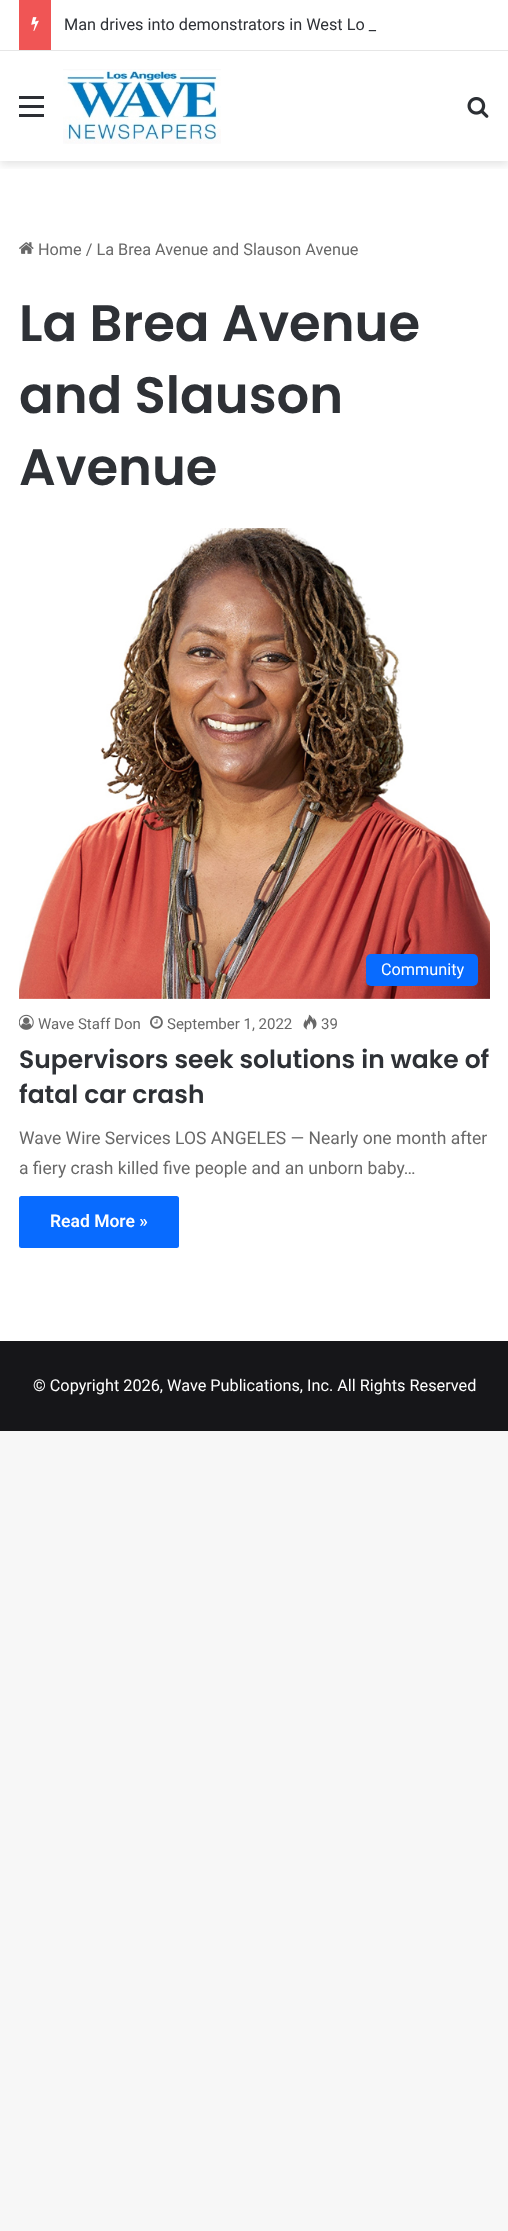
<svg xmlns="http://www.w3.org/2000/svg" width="508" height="2231">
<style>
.a{font:16.25px Roboto;fill:#2e3136}
.b{font:16.25px Roboto;fill:#686868}
.c{font:600 51.25px Poppins;fill:#2e3136}
.d{font:16.25px Roboto;fill:#fff}
.e{font:15px Roboto;fill:#686868}
.f{font:600 25px Poppins;fill:#2e3136}
.g{font:17.5px Roboto;fill:#686868}
.h{font:600 17.5px Roboto;fill:#fff}
</style>
<defs>
<clipPath id="clip1"><path d="M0 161h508v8H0z"/></clipPath>
</defs>
<rect width="100%" height="100%" fill="#f7f7f7"/>
<path fill="#fff" d="M0 51h508v1290H0z"/>
<g clip-path="url(#clip1)">
<path fill="#0000001a" filter="blur(4.5px)" d="M0 55h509v110H0z"/>
</g>
<path fill="#fff" d="M0 0h508v50H0z"/>
<path fill="#e6e6e6" d="M0 50h508v1H0z"/>
<path fill="#f05555" d="M19 0h32v50H19z"/>
<image href="1.png" x="31" y="17" width="8" height="14"/>
<path fill="#2c2f34" d="M19 105h25v3H19z"/>
<path fill="#2c2f34" d="M19 96h25v3H19z"/>
<path fill="#2c2f34" d="M19 114h25v3H19z"/>
<image href="2.png" x="63" y="69" width="158" height="75"/>
<image href="3.png" x="467" y="97" width="22" height="21"/>
<image href="4.png" x="19" y="242" width="15" height="12"/>
<image href="5.png" x="19" y="528" width="471" height="471"/>
<rect fill="#086bff" x="366" y="954" width="112" height="32" rx="5"/>
<image href="6.png" x="19" y="1014" width="15" height="16"/>
<image href="7.png" x="150" y="1015" width="13" height="14"/>
<image href="8.png" x="303" y="1014" width="14" height="16"/>
<rect fill="#086bff" x="19" y="1196" width="160" height="52" rx="2.5"/>
<path fill="#161619" d="M0 1341h508v90H0z"/>
<text class="a" x="64" y="30">Man drives into demonstrators in West Lo _</text>
<text class="b" x="38" y="255">Home / La Brea Avenue and Slauson Avenue</text>
<text class="c" x="19" y="341">La Brea Avenue</text>
<text class="c" x="19" y="413">and Slauson</text>
<text class="c" x="19" y="485">Avenue</text>
<text class="d" x="381" y="975">Community</text>
<text class="e" x="38" y="1029">Wave Staff Don</text>
<text class="e" x="167" y="1029">September 1, 2022</text>
<text class="e" x="321" y="1029">39</text>
<text class="f" x="19" y="1068">Supervisors seek solutions in wake of</text>
<text class="f" x="19" y="1103">fatal car crash</text>
<text class="g" x="19" y="1144">Wave Wire Services LOS ANGELES — Nearly one month after</text>
<text class="g" x="19" y="1174">a fiery crash killed five people and an unborn baby…</text>
<text class="h" x="50" y="1227">Read More »</text>
<text class="d" x="33" y="1391">© Copyright 2026, Wave Publications, Inc. All Rights Reserved</text>
</svg>
